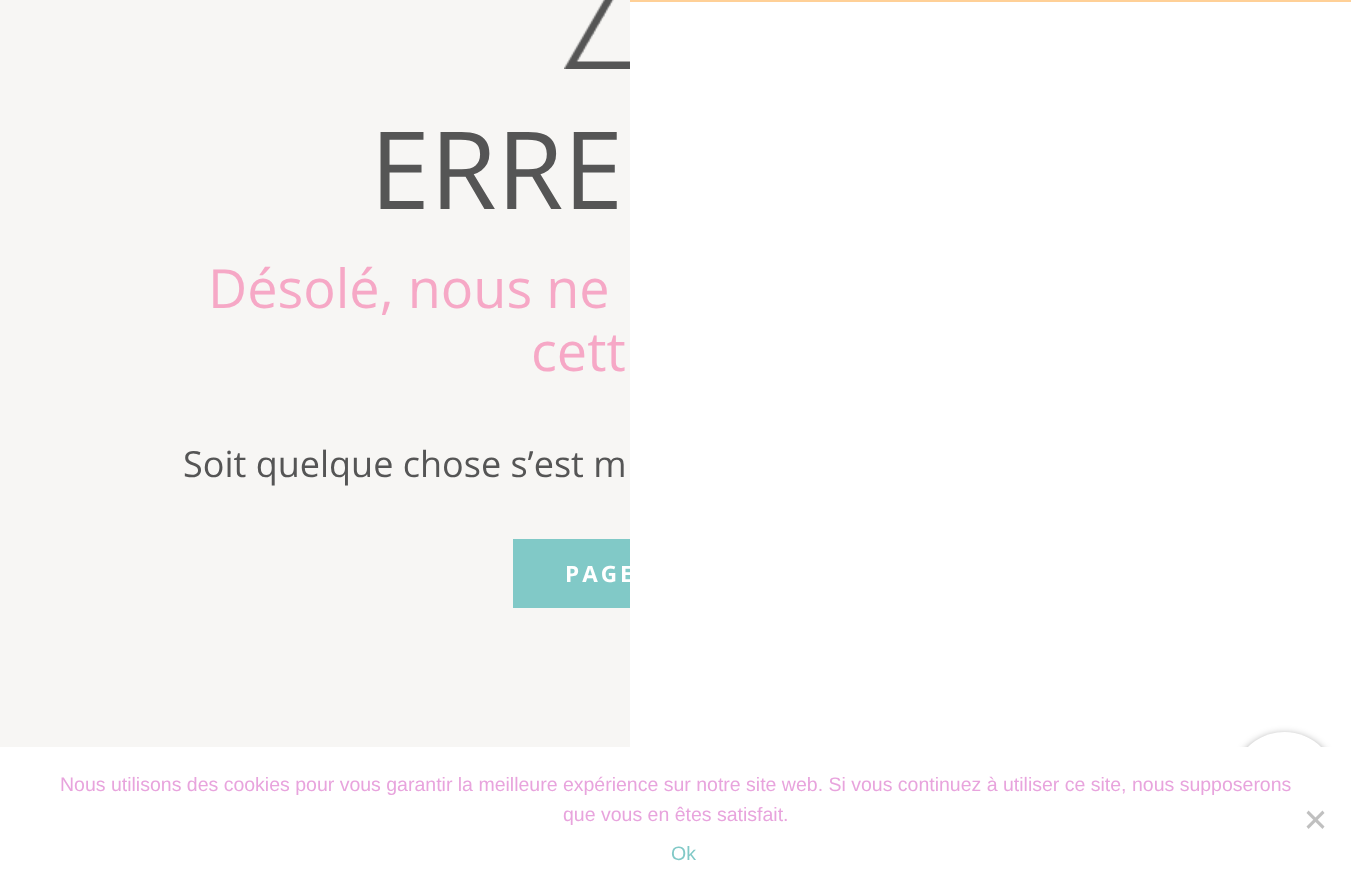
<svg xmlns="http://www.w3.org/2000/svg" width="1351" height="891">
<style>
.a{font:108px Open Sans;fill:#555}
.b{font:54px Open Sans;fill:#f6a8c6}
.c{font:36px Open Sans;fill:#555}
.d{font:bold 22.5px Open Sans;letter-spacing:3px;fill:#fff}
.e{font:19.5px Liberation Sans;fill:#e8a4dd}
.f{font:19.5px Liberation Sans;fill:#81c9c7}
</style>
<rect width="100%" height="100%" fill="#f7f6f4"/>
<image href="1.png" x="564" y="0" width="66" height="69"/>
<path fill="#81c9c7" d="M513 539h117v69H513z"/>
<path fill="#fff" d="M630 2h721v745H630z"/>
<rect fill="#00000080" filter="blur(4px)" x="1232" y="735" width="105" height="105" rx="52.5"/>
<circle fill="#fff" cx="1284.5" cy="784.5" r="52.5"/>
<path fill="#ffd097" d="M630 0h721v2H630z"/>
<path fill="#fff" d="M0 747h1351v144H0z"/>
<path fill="#c0c0c0" d="M1322.5 810.5l2 2.5l-16 16l-2-2.5z"/>
<path fill="#c0c0c0" d="M1306.5 813l2-2.5l16 16l-2 2.5z"/>
<text class="a" x="370" y="209">ERRE</text>
<text class="b" x="208" y="308">Désolé, nous ne</text>
<text class="b" x="531" y="371">cett</text>
<text class="c" x="183" y="477">Soit quelque chose s’est m</text>
<text class="d" x="565" y="582">PAGE</text>
<text class="e" x="60" y="791">Nous utilisons des cookies pour vous garantir la meilleure expérience sur notre site web. Si vous continuez à utiliser ce site, nous supposerons</text>
<text class="e" x="563" y="821">que vous en êtes satisfait.</text>
<text class="f" x="671" y="860">Ok</text>
</svg>
